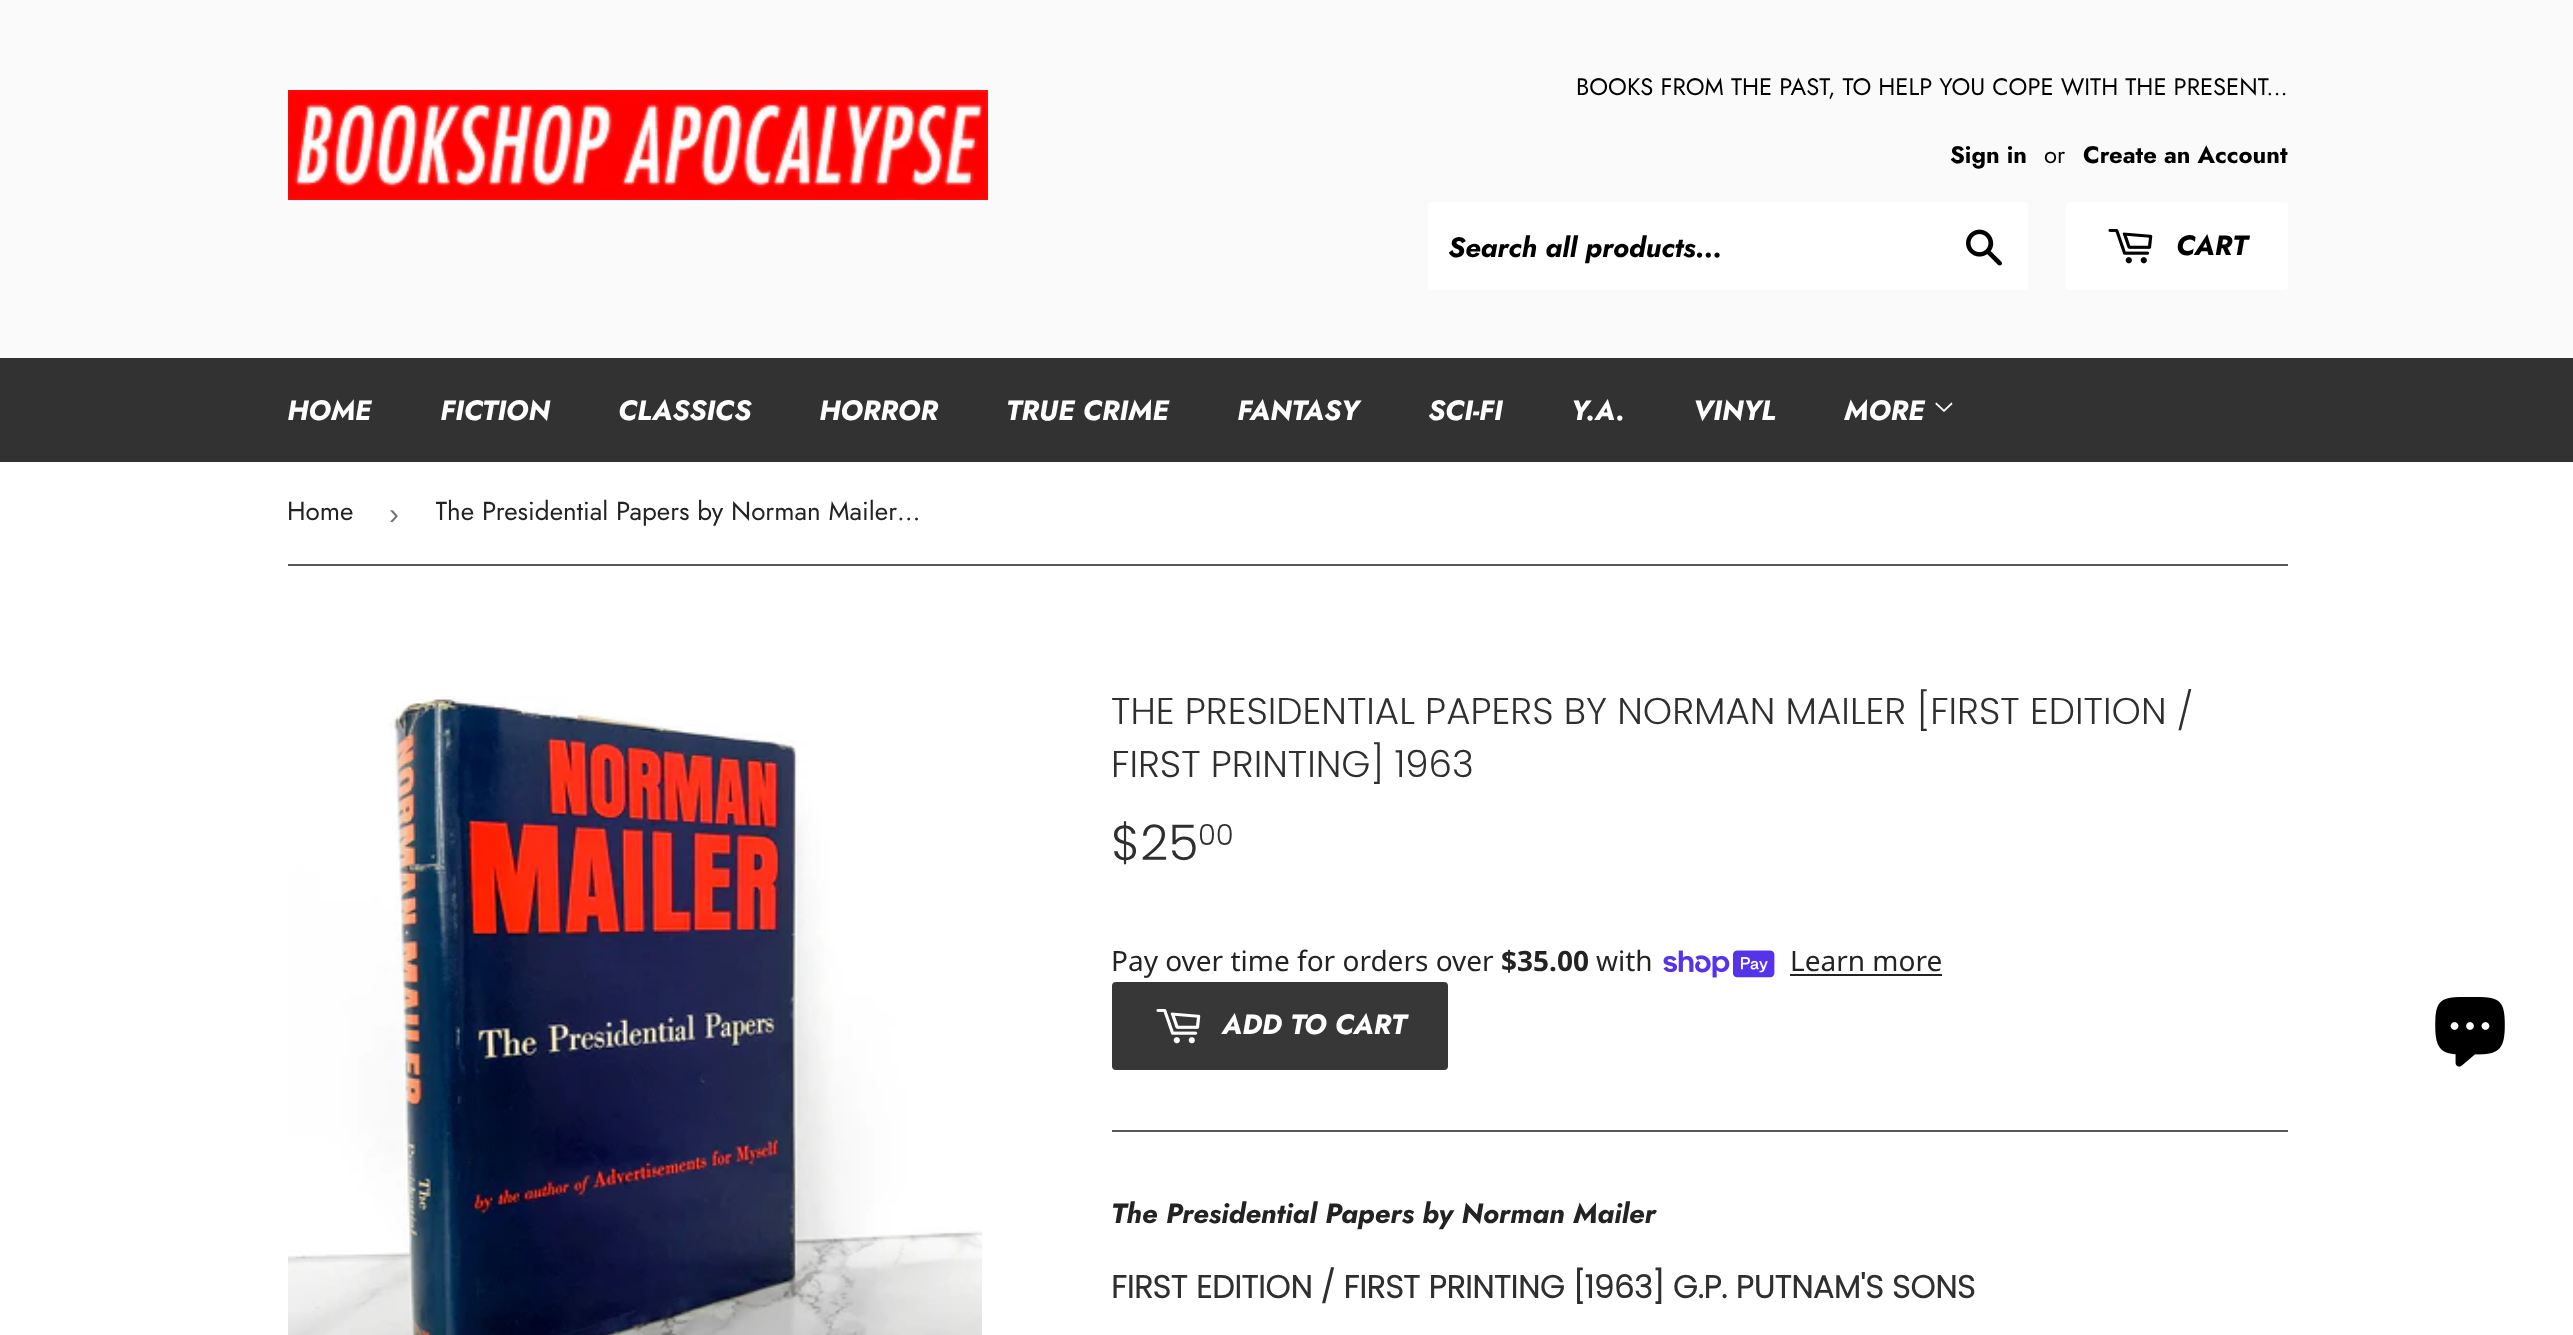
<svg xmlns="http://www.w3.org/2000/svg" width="2573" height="1335">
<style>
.a{font:23.8px Jost;fill:#000}
.b{font:bold 23.8px Jost;fill:#000}
.c{font:italic bold 28px Jost;fill:#000}
.d{font:italic bold 28px Jost;fill:#fff}
.e{font:26px Jost;fill:#232323}
.f{font:30px Liberation Sans;fill:#767676}
.g{font:300 37.3px Poppins;fill:#2f2f2f}
.h{font:300 49px Poppins;fill:#2f2f2f}
.i{font:300 29px Poppins;fill:#2f2f2f}
.j{font:28px Noto Sans;fill:#232323}
.k{font:bold 28px Noto Sans;fill:#232323}
.l{font:italic bold 28px Jost;fill:#232323}
.m{font:bold 31.75px Poppins;fill:#2f2f2f}
</style>
<defs>
<clipPath id="clip1"><path d="M436 462h500v102H436z"/></clipPath>
</defs>
<rect width="100%" height="100%" fill="#fff"/>
<path fill="#fafafa" d="M0 0h2573v358H0z"/>
<image href="1.png" x="288" y="90" width="700" height="110"/>
<rect fill="#fff" x="1428" y="202" width="600" height="88" rx="4"/>
<image href="2.png" x="1966" y="229" width="36" height="37"/>
<rect fill="#fff" x="2066" y="202" width="222" height="88" rx="4"/>
<image href="3.png" x="2108" y="229" width="45" height="35"/>
<path fill="#323232" d="M0 358h2573v104H0z"/>
<image href="4.png" x="1935" y="402" width="18" height="10"/>
<path fill="#585858" d="M288 564h2000v2H288z"/>
<image href="5.png" x="288" y="696" width="694" height="639"/>
<image href="6.png" x="1663" y="950" width="112" height="28"/>
<path fill="#232323" d="M1790 974h152v2H1790z"/>
<rect fill="#373737" x="1112" y="982" width="336" height="88" rx="4"/>
<image href="7.png" x="1156" y="1009" width="45" height="35"/>
<path fill="#585858" d="M1112 1130h1176v2H1112z"/>
<image href="8.png" x="2435" y="997" width="70" height="70"/>
<text class="a" x="1576" y="95">BOOKS FROM THE PAST, TO HELP YOU COPE WITH THE PRESENT...</text>
<text class="b" x="1950" y="163">Sign in</text>
<text class="a" x="2044" y="163">or</text>
<text class="b" x="2083" y="163">Create an Account</text>
<text class="c" x="1448" y="257">Search all products...</text>
<text class="c" x="2176" y="255">CART</text>
<text class="d" x="287" y="420">HOME</text>
<text class="d" x="440" y="420">FICTION</text>
<text class="d" x="618" y="420">CLASSICS</text>
<text class="d" x="819" y="420">HORROR</text>
<text class="d" x="1006" y="420">TRUE CRIME</text>
<text class="d" x="1237" y="420">FANTASY</text>
<text class="d" x="1428" y="420">SCI-FI</text>
<text class="d" x="1571" y="420">Y.A.</text>
<text class="d" x="1693" y="420">VINYL</text>
<text class="d" x="1844" y="420">MORE</text>
<text class="e" x="287" y="520">Home</text>
<text class="f" x="389" y="524">›</text>
<g clip-path="url(#clip1)">
<text class="e" x="435" y="520">The Presidential Papers by Norman Mailer…</text>
</g>
<text class="g" x="1111" y="724">THE PRESIDENTIAL PAPERS BY NORMAN MAILER [FIRST EDITION /</text>
<text class="g" x="1111" y="777">FIRST PRINTING] 1963</text>
<text class="h" x="1111" y="860">$25</text>
<text class="i" x="1198" y="845">00</text>
<text class="j" x="1111" y="971">Pay over time for orders over</text>
<text class="k" x="1501" y="971">$35.00</text>
<text class="j" x="1596" y="971">with</text>
<text class="j" x="1790" y="971">Learn more</text>
<text class="d" x="1222" y="1034">ADD TO CART</text>
<text class="l" x="1111" y="1223">The Presidential Papers by Norman Mailer</text>
<text class="m" x="1111" y="1298">FIRST EDITION / FIRST PRINTING [1963] G.P. PUTNAM'S SONS</text>
</svg>
